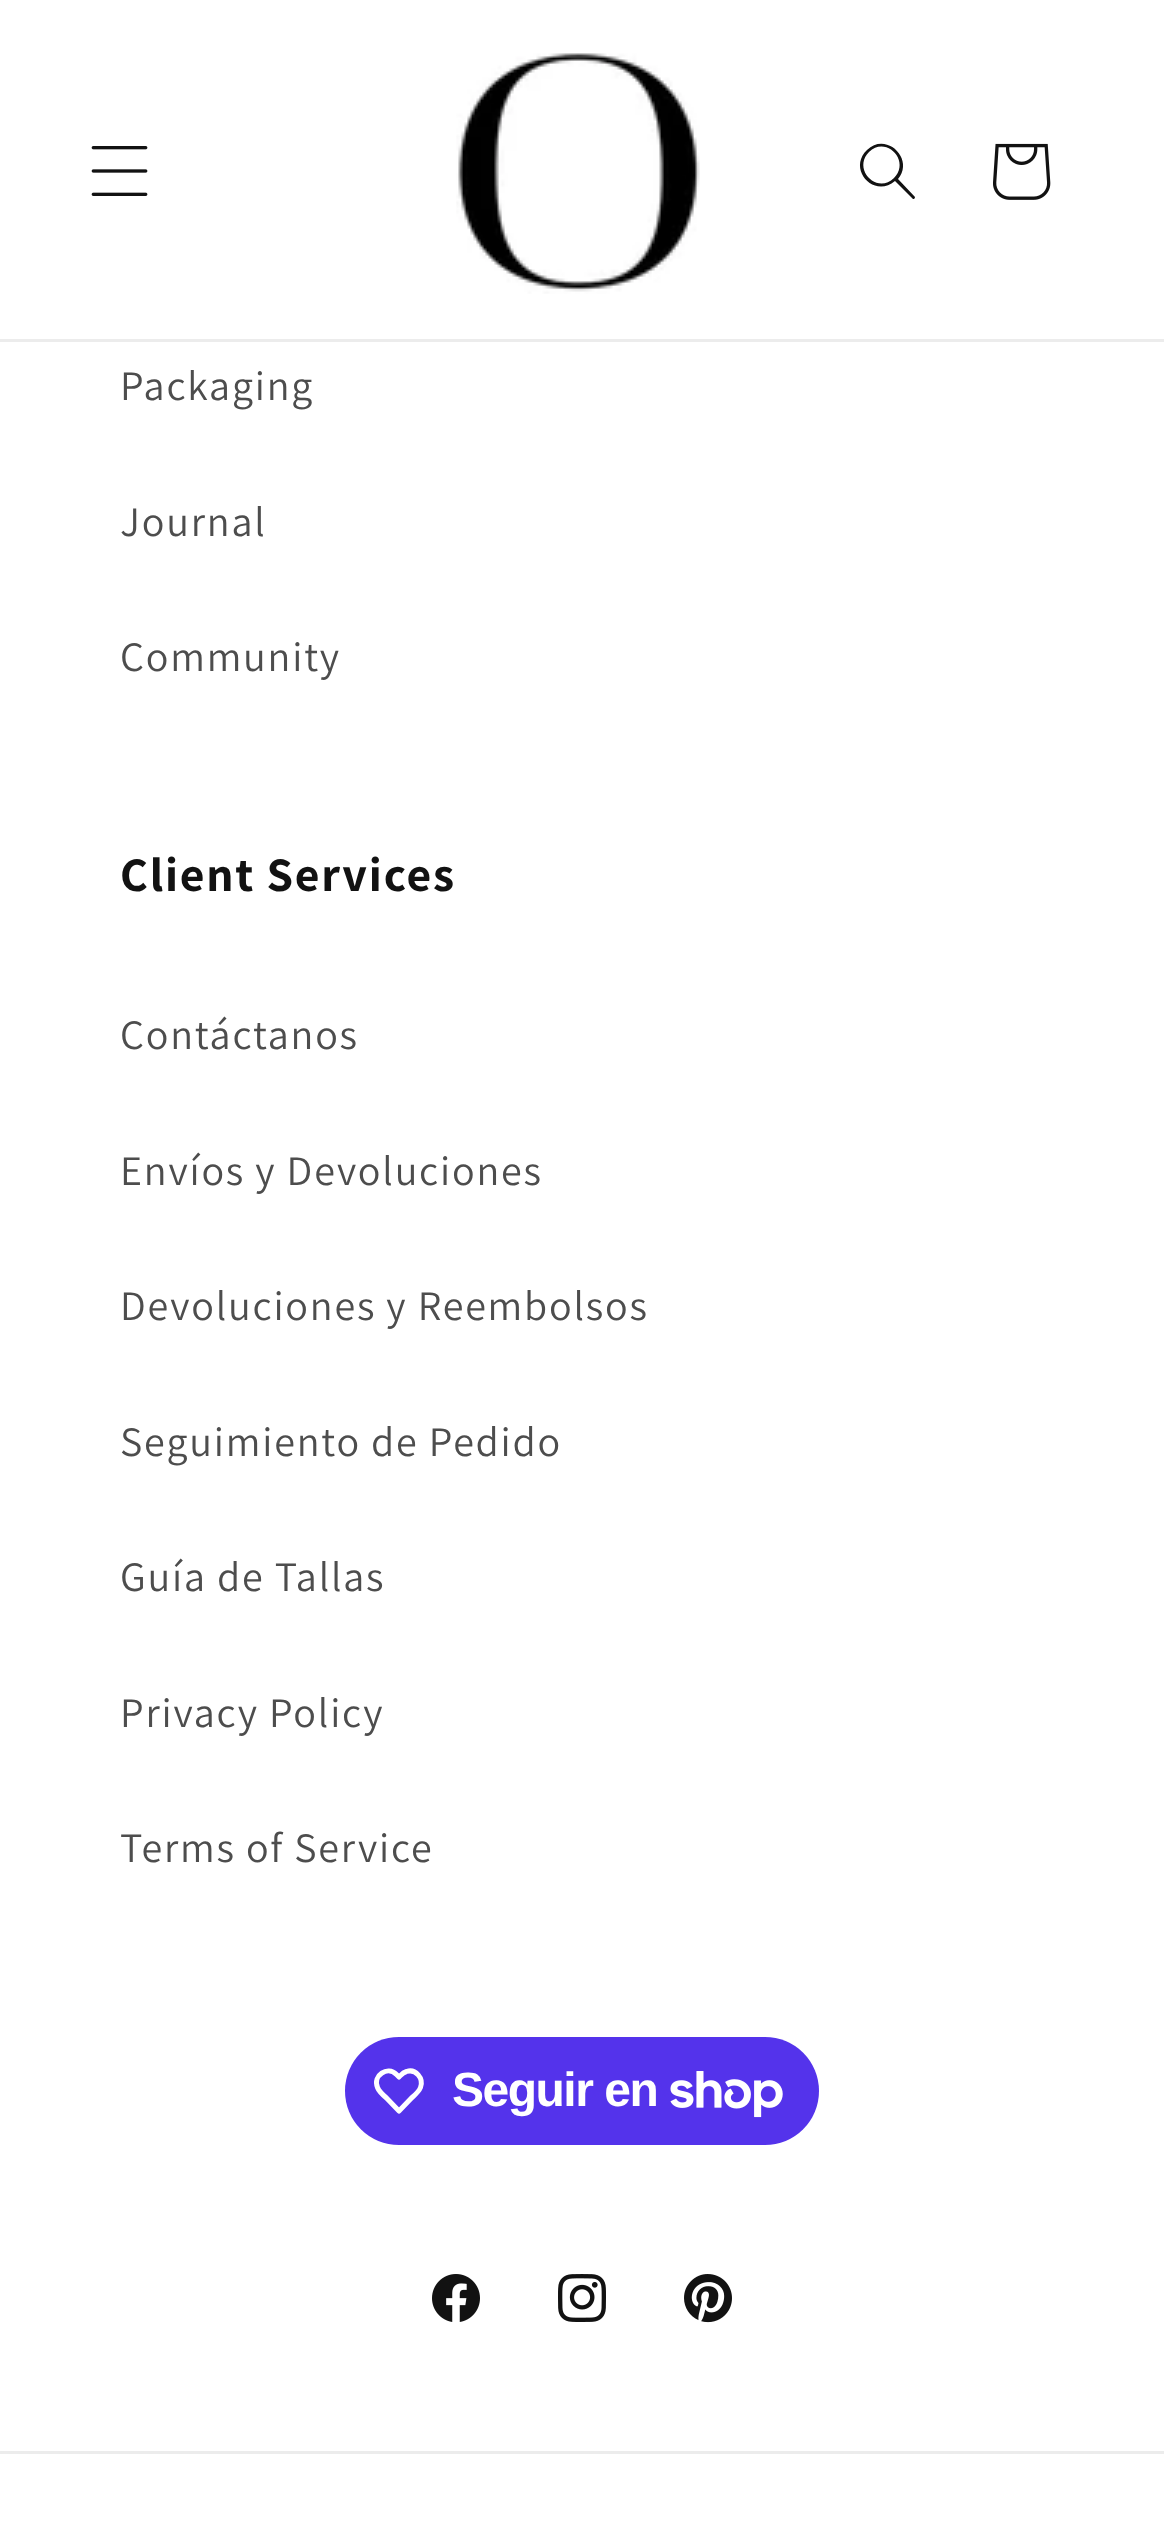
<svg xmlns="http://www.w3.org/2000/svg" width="1164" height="2548">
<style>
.a{font:42px Assistant;letter-spacing:1.8px;fill:#4d4d4d}
.b{font:bold 48px Assistant;letter-spacing:1.8px;fill:#121212}
.c{font:bold 48px Liberation Sans;letter-spacing:-1.5px;fill:#fff}
</style>
<rect width="100%" height="100%" fill="#fff"/>
<path fill="#ececec" d="M0 339h1164v3H0z"/>
<image href="1.png" x="91" y="146" width="57" height="50"/>
<image href="2.png" x="456" y="53" width="244" height="241"/>
<path fill="#121212" fill-rule="evenodd" d="M894 178c-17 17-42-9-25-26c17-17 42 9 25 26m1 3c-21 18-48-12-28-31c19-19 48 9 31 29l17 18c0 2-2 3-3 1z"/>
<image href="3.png" x="993" y="143" width="58" height="57"/>
<rect fill="#5433eb" x="345" y="2037" width="474" height="108" rx="54"/>
<path fill="none" stroke="#fff" stroke-width="5" stroke-linejoin="round" d="M396.5 2074.5l2.5 2.5c2-2 4-4.5 7.5-5.5c9-3 17.5 6.5 14 16c-1.5 4-5.5 7.5-9 10.5l-12.5 13l-12.5-13c-3.5-3-7.5-6.5-9-10.5c-5-12 10-22 19-13z"/>
<image href="4.png" x="670" y="2071" width="113" height="47"/>
<image href="5.png" x="432" y="2274" width="48" height="48"/>
<image href="6.png" x="558" y="2274" width="48" height="48"/>
<image href="7.png" x="684" y="2274" width="48" height="49"/>
<path fill="#ececec" d="M0 2451h1164v3H0z"/>
<text class="a" x="120" y="400">Packaging</text>
<text class="a" x="120" y="536">Journal</text>
<text class="a" x="120" y="671">Community</text>
<text class="b" x="120" y="891">Client Services</text>
<text class="a" x="120" y="1049">Contáctanos</text>
<text class="a" x="120" y="1185">Envíos y Devoluciones</text>
<text class="a" x="120" y="1320">Devoluciones y Reembolsos</text>
<text class="a" x="120" y="1456">Seguimiento de Pedido</text>
<text class="a" x="120" y="1591">Guía de Tallas</text>
<text class="a" x="120" y="1727">Privacy Policy</text>
<text class="a" x="120" y="1862">Terms of Service</text>
<text class="c" x="452" y="2106">Seguir en</text>
</svg>
